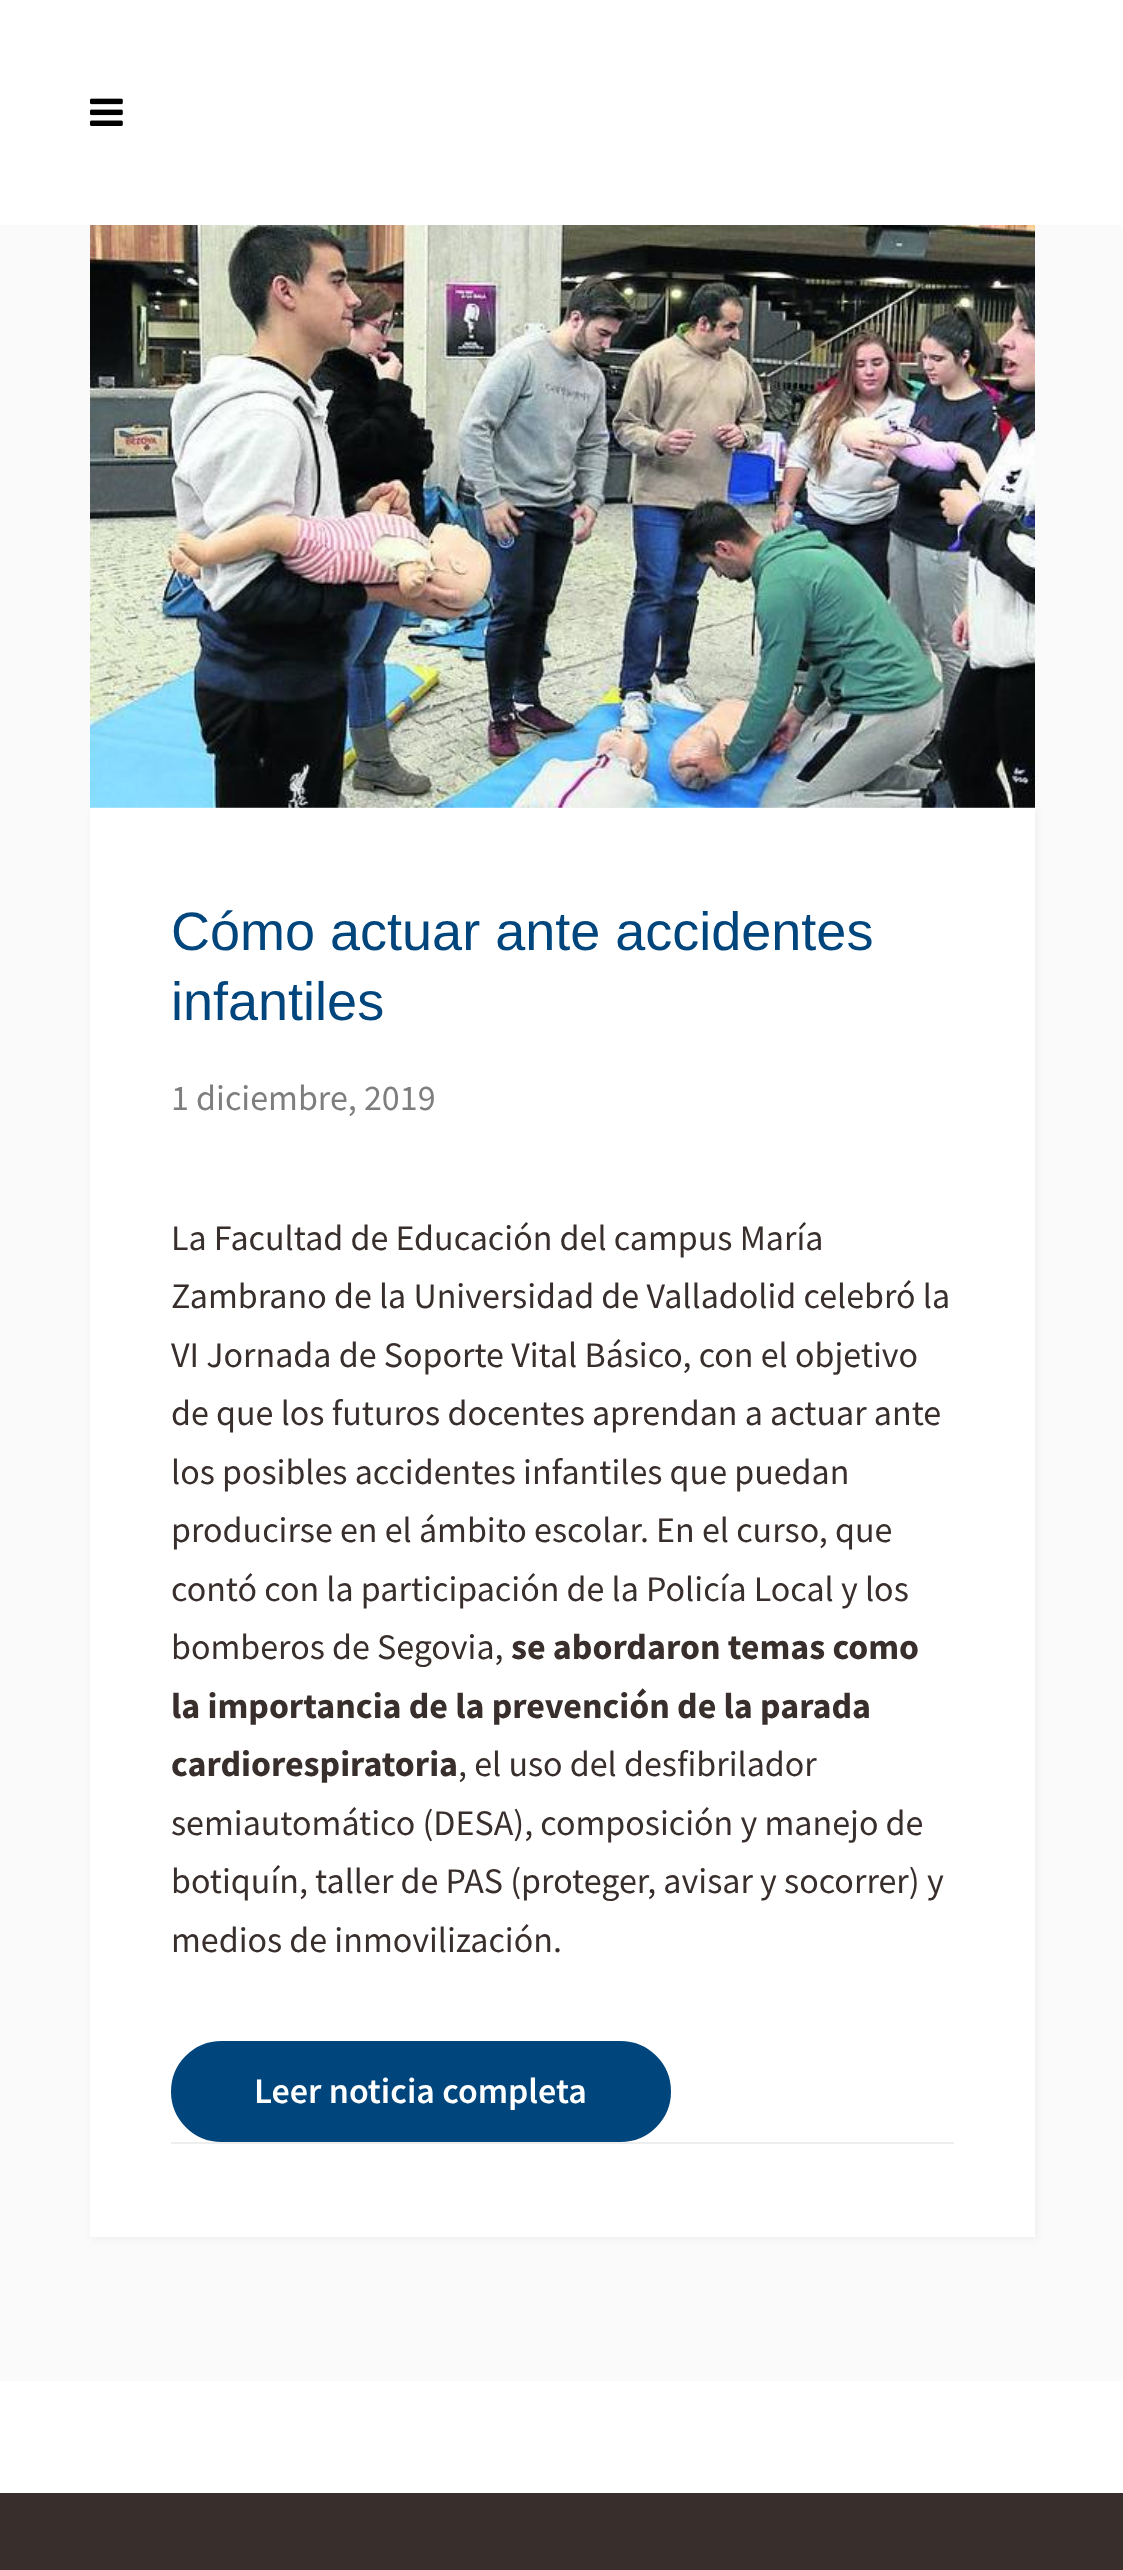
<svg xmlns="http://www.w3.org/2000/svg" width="1123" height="2570">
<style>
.a{font:54px Arimo;fill:#00457c}
.b{font:36px Source Sans Pro;fill:#7e7e7e}
.c{font:36px Source Sans Pro;fill:#382f2d}
.d{font:bold 36px Source Sans Pro;fill:#382f2d}
.e{font:600 36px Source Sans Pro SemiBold;fill:#fff}
</style>
<rect width="100%" height="100%" fill="#fff"/>
<image href="1.png" x="90" y="98" width="33" height="28"/>
<path fill="#fafafa" d="M0 225h1123v2156H0z"/>
<path fill="#eee" filter="blur(3.5px)" d="M92 810h945v1429H92z"/>
<image href="2.png" x="90" y="225" width="945" height="583"/>
<path fill="#fff" d="M90 808h945v1429H90z"/>
<rect fill="#00457c" stroke="#00457c" stroke-width="5" x="173.5" y="2043.5" width="495" height="96" rx="48"/>
<path fill="#eee" d="M171 2142h783v2H171z"/>
<path fill="#382f2d" d="M0 2493h1123v77H0z"/>
<text class="a" x="171" y="950">Cómo actuar ante accidentes</text>
<text class="a" x="171" y="1020">infantiles</text>
<text class="b" x="171" y="1110">1 diciembre, 2019</text>
<text class="c" x="171" y="1250">La Facultad de Educación del campus María</text>
<text class="c" x="171" y="1308">Zambrano de la Universidad de Valladolid celebró la</text>
<text class="c" x="171" y="1367">VI Jornada de Soporte Vital Básico, con el objetivo</text>
<text class="c" x="171" y="1425">de que los futuros docentes aprendan a actuar ante</text>
<text class="c" x="171" y="1484">los posibles accidentes infantiles que puedan</text>
<text class="c" x="171" y="1542">producirse en el ámbito escolar. En el curso, que</text>
<text class="c" x="171" y="1601">contó con la participación de la Policía Local y los</text>
<text class="c" x="171" y="1659">bomberos de Segovia,</text>
<text class="d" x="511" y="1659">se abordaron temas como</text>
<text class="d" x="171" y="1718">la importancia de la prevención de la parada</text>
<text class="d" x="171" y="1776">cardiorespiratoria</text>
<text class="c" x="458" y="1776">, el uso del desfibrilador</text>
<text class="c" x="171" y="1835">semiautomático (DESA), composición y manejo de</text>
<text class="c" x="171" y="1893">botiquín, taller de PAS (proteger, avisar y socorrer) y</text>
<text class="c" x="171" y="1952">medios de inmovilización.</text>
<text class="e" x="254" y="2103">Leer noticia completa</text>
</svg>
